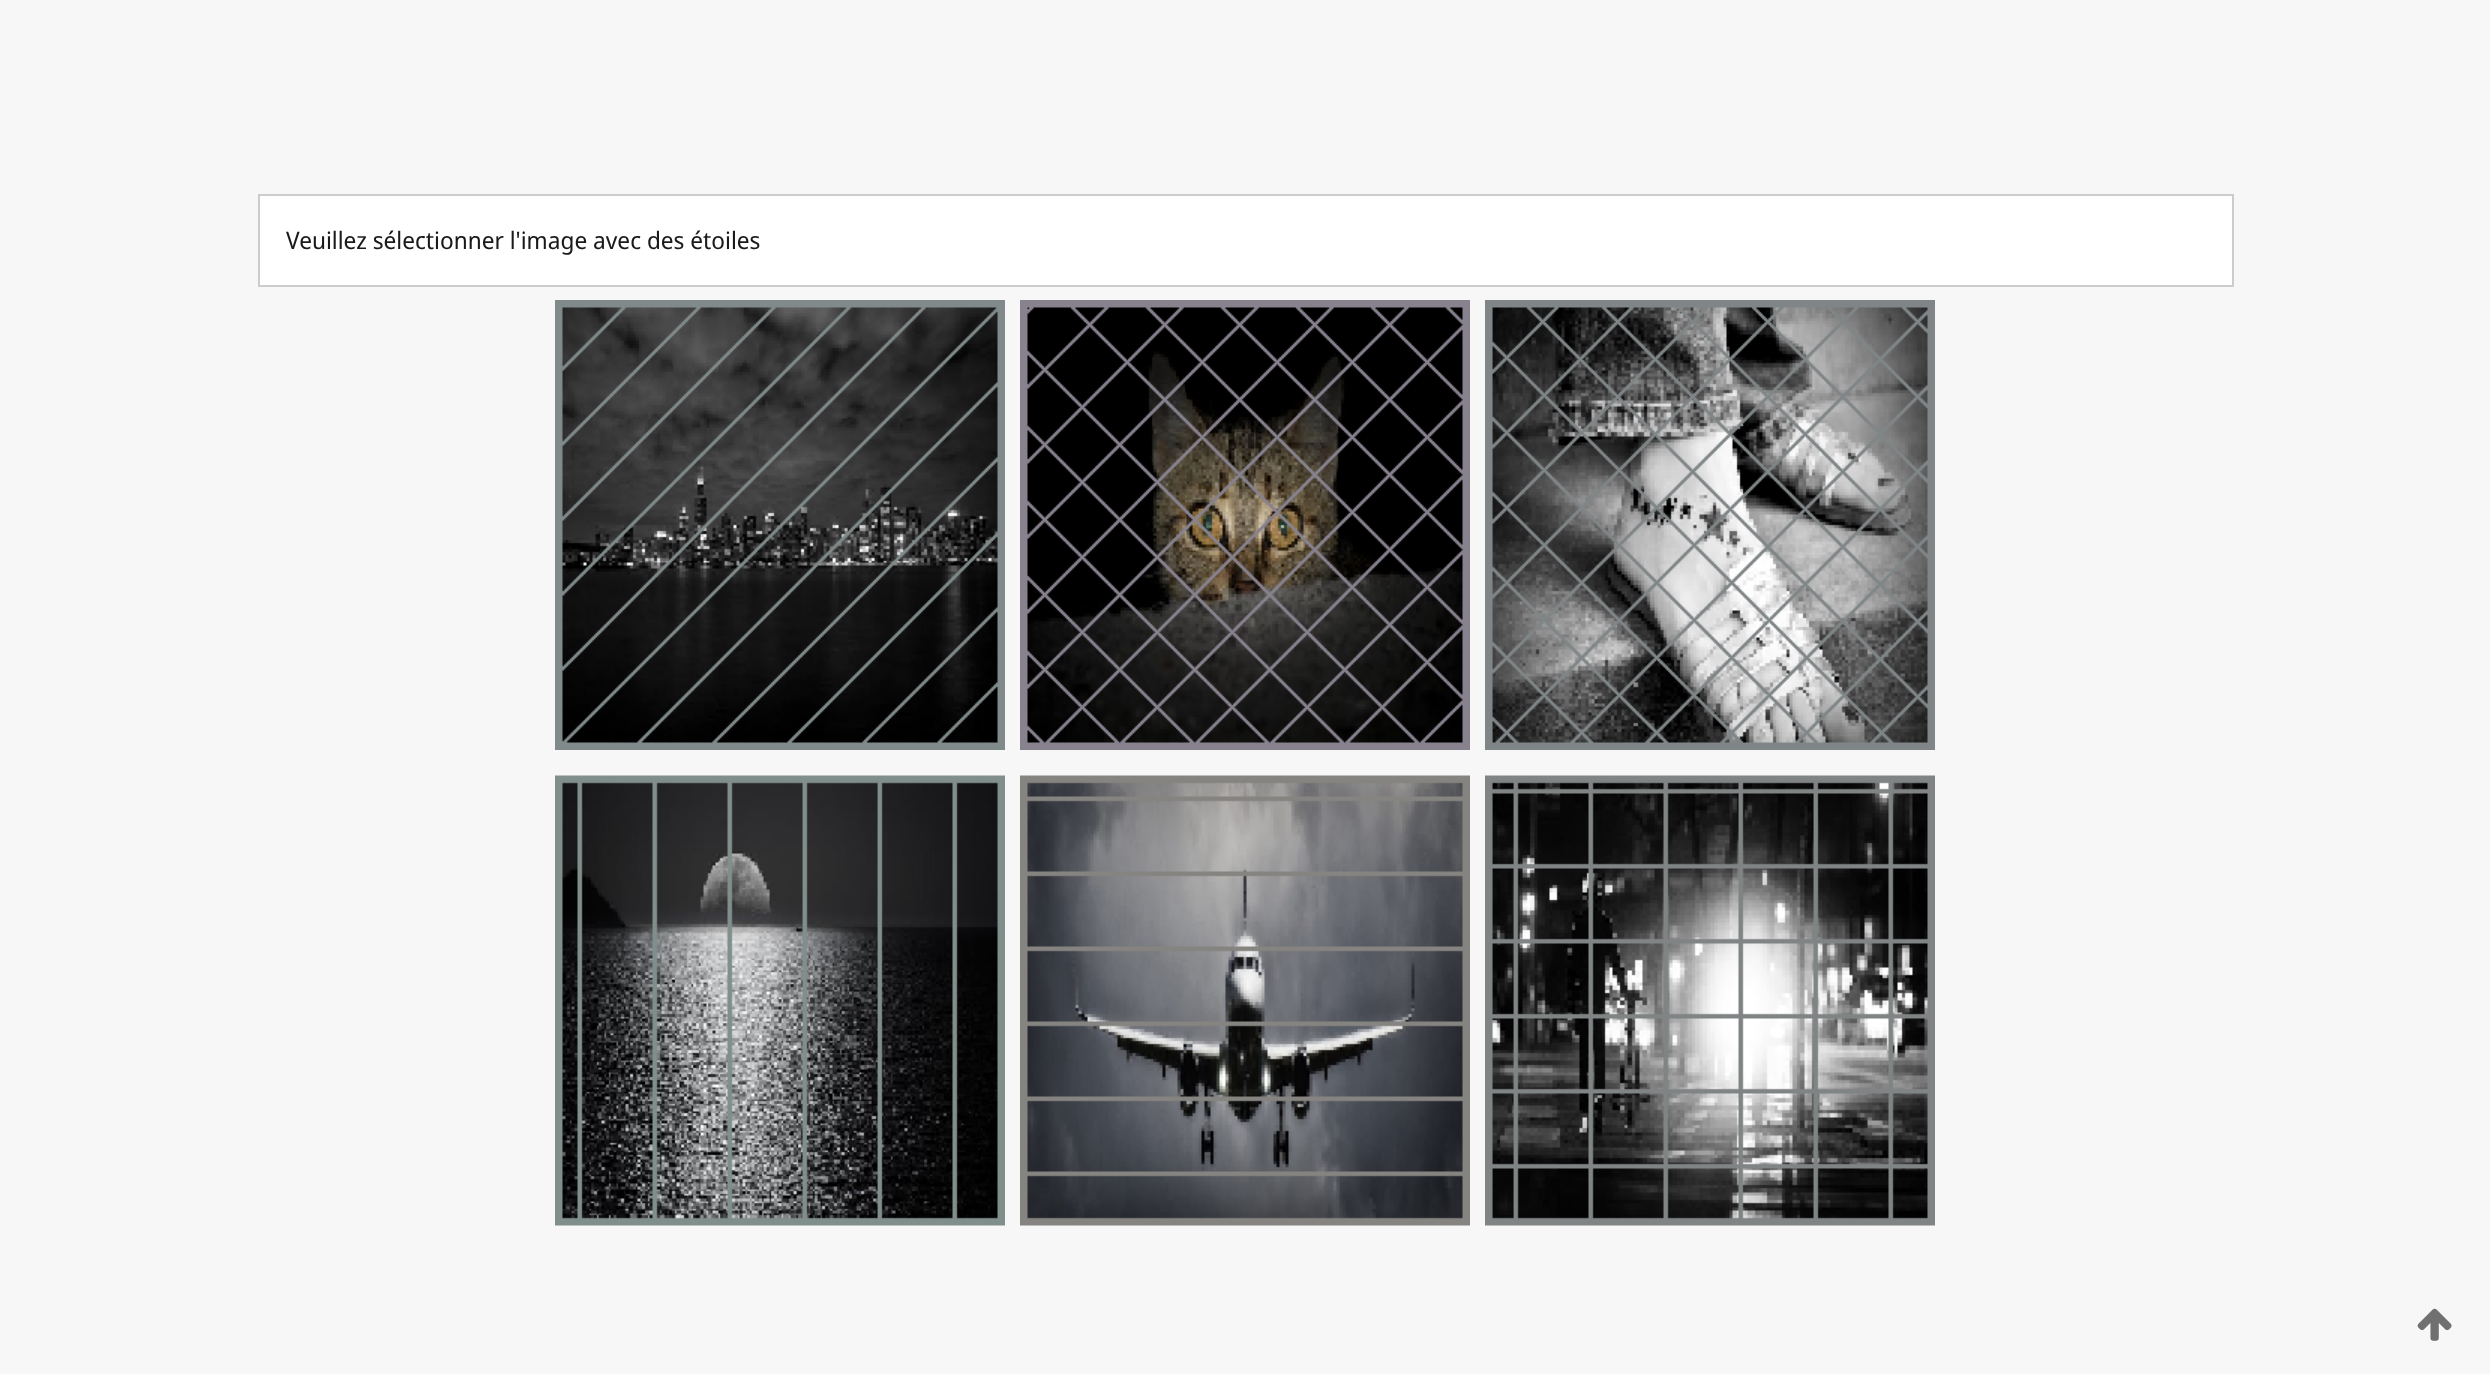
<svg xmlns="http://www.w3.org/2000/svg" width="2490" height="1374">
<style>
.a{font:24px Noto Sans Display;fill:#1a1a1a}
</style>
<rect width="100%" height="100%" fill="#f7f7f7"/>
<path fill="#fff" stroke="#ccc" stroke-width="2" d="M259 195h1974v91H259z"/>
<image href="1.png" x="555" y="300" width="450" height="450"/>
<image href="2.png" x="1020" y="300" width="450" height="450"/>
<image href="3.png" x="1485" y="300" width="450" height="450"/>
<image href="4.png" x="555" y="775" width="450" height="451"/>
<image href="5.png" x="1020" y="775" width="450" height="451"/>
<image href="6.png" x="1485" y="775" width="450" height="451"/>
<image href="7.png" x="2417" y="1308" width="35" height="33"/>
<text class="a" x="286" y="249">Veuillez sélectionner l'image avec des étoiles</text>
</svg>
